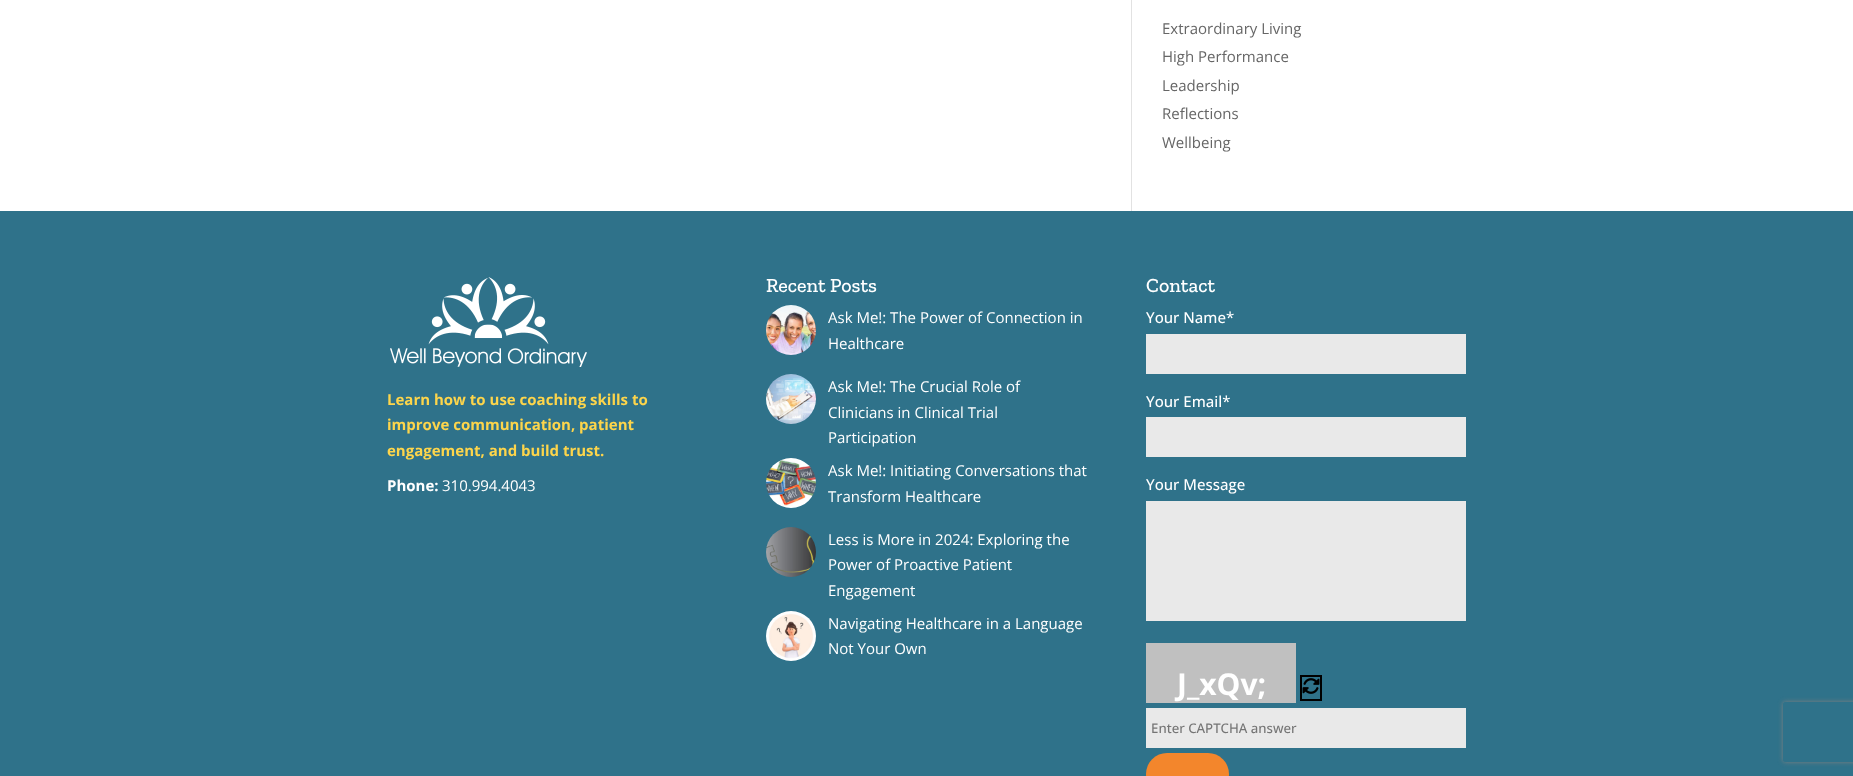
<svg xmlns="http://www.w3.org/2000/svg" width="1853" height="776">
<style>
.a{font:15px Open Sans;fill:#666}
.b{font:bold 15px Open Sans;fill:#fdd54b}
.c{font:bold 15px Open Sans;fill:#fff}
.d{font:15px Open Sans;fill:#fff}
.e{font:500 20px Zilla Slab;fill:#fff}
.f{font:500 15px Open Sans;fill:#fff}
.g{font:bold 30px Open Sans;fill:#fff}
.h{font:500 13.25px Open Sans;fill:#757575}
</style>
<defs>
<clipPath id="clip1"><path d="M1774 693h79v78h-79zm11 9h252c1 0 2 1 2 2v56c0 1-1 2-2 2h-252c-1 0-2-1-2-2v-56c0-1 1-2 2-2z" clip-rule="evenodd"/></clipPath>
</defs>
<rect width="100%" height="100%" fill="#fff"/>
<path fill="#e2e2e2" d="M1131 0h1v211H1131z"/>
<path fill="#2f728a" d="M0 211h1853v565H0z"/>
<image href="1.png" x="390" y="277" width="197" height="90"/>
<image href="2.png" x="766" y="305" width="50" height="50"/>
<image href="3.png" x="766" y="374" width="50" height="50"/>
<image href="4.png" x="766" y="458" width="50" height="50"/>
<image href="5.png" x="766" y="527" width="50" height="50"/>
<image href="6.png" x="766" y="611" width="50" height="50"/>
<path fill="#e9e9e9" d="M1146 334h320v40H1146z"/>
<path fill="#e9e9e9" d="M1146 417h320v40H1146z"/>
<path fill="#e9e9e9" d="M1146 501h320v120H1146z"/>
<path fill="#c0c0c0" d="M1146 643h150v60H1146z"/>
<path fill="none" stroke="#000" stroke-width="2" d="M1301 676h20v24H1301z"/>
<image href="7.png" x="1302" y="678" width="18" height="16"/>
<path fill="#e9e9e9" d="M1146 708h320v40H1146z"/>
<rect fill="#f3862c" x="1146" y="753" width="83" height="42" rx="21"/>
<g clip-path="url(#clip1)">
<rect fill="#808080" filter="blur(2.5px)" x="1783" y="702" width="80" height="60" rx="2"/>
</g>
<text class="a" x="1162" y="34">Extraordinary Living</text>
<text class="a" x="1162" y="62">High Performance</text>
<text class="a" x="1162" y="91">Leadership</text>
<text class="a" x="1162" y="119">Reflections</text>
<text class="a" x="1162" y="148">Wellbeing</text>
<text class="b" x="387" y="405">Learn how to use coaching skills to</text>
<text class="b" x="387" y="430">improve communication, patient</text>
<text class="b" x="387" y="456">engagement, and build trust.</text>
<text class="c" x="387" y="491">Phone:</text>
<text class="d" x="442" y="491">310.994.4043</text>
<text class="e" x="766" y="292">Recent Posts</text>
<text class="d" x="828" y="323">Ask Me!: The Power of Connection in</text>
<text class="d" x="828" y="349">Healthcare</text>
<text class="d" x="828" y="392">Ask Me!: The Crucial Role of</text>
<text class="d" x="828" y="418">Clinicians in Clinical Trial</text>
<text class="d" x="828" y="443">Participation</text>
<text class="d" x="828" y="476">Ask Me!: Initiating Conversations that</text>
<text class="d" x="828" y="502">Transform Healthcare</text>
<text class="d" x="828" y="545">Less is More in 2024: Exploring the</text>
<text class="d" x="828" y="570">Power of Proactive Patient</text>
<text class="d" x="828" y="596">Engagement</text>
<text class="d" x="828" y="629">Navigating Healthcare in a Language</text>
<text class="d" x="828" y="654">Not Your Own</text>
<text class="e" x="1146" y="292">Contact</text>
<text class="f" x="1146" y="323">Your Name*</text>
<text class="f" x="1146" y="407">Your Email*</text>
<text class="f" x="1146" y="490">Your Message</text>
<text class="g" x="1177" y="695">J_xQv;</text>
<text class="h" x="1151" y="733">Enter CAPTCHA answer</text>
</svg>
